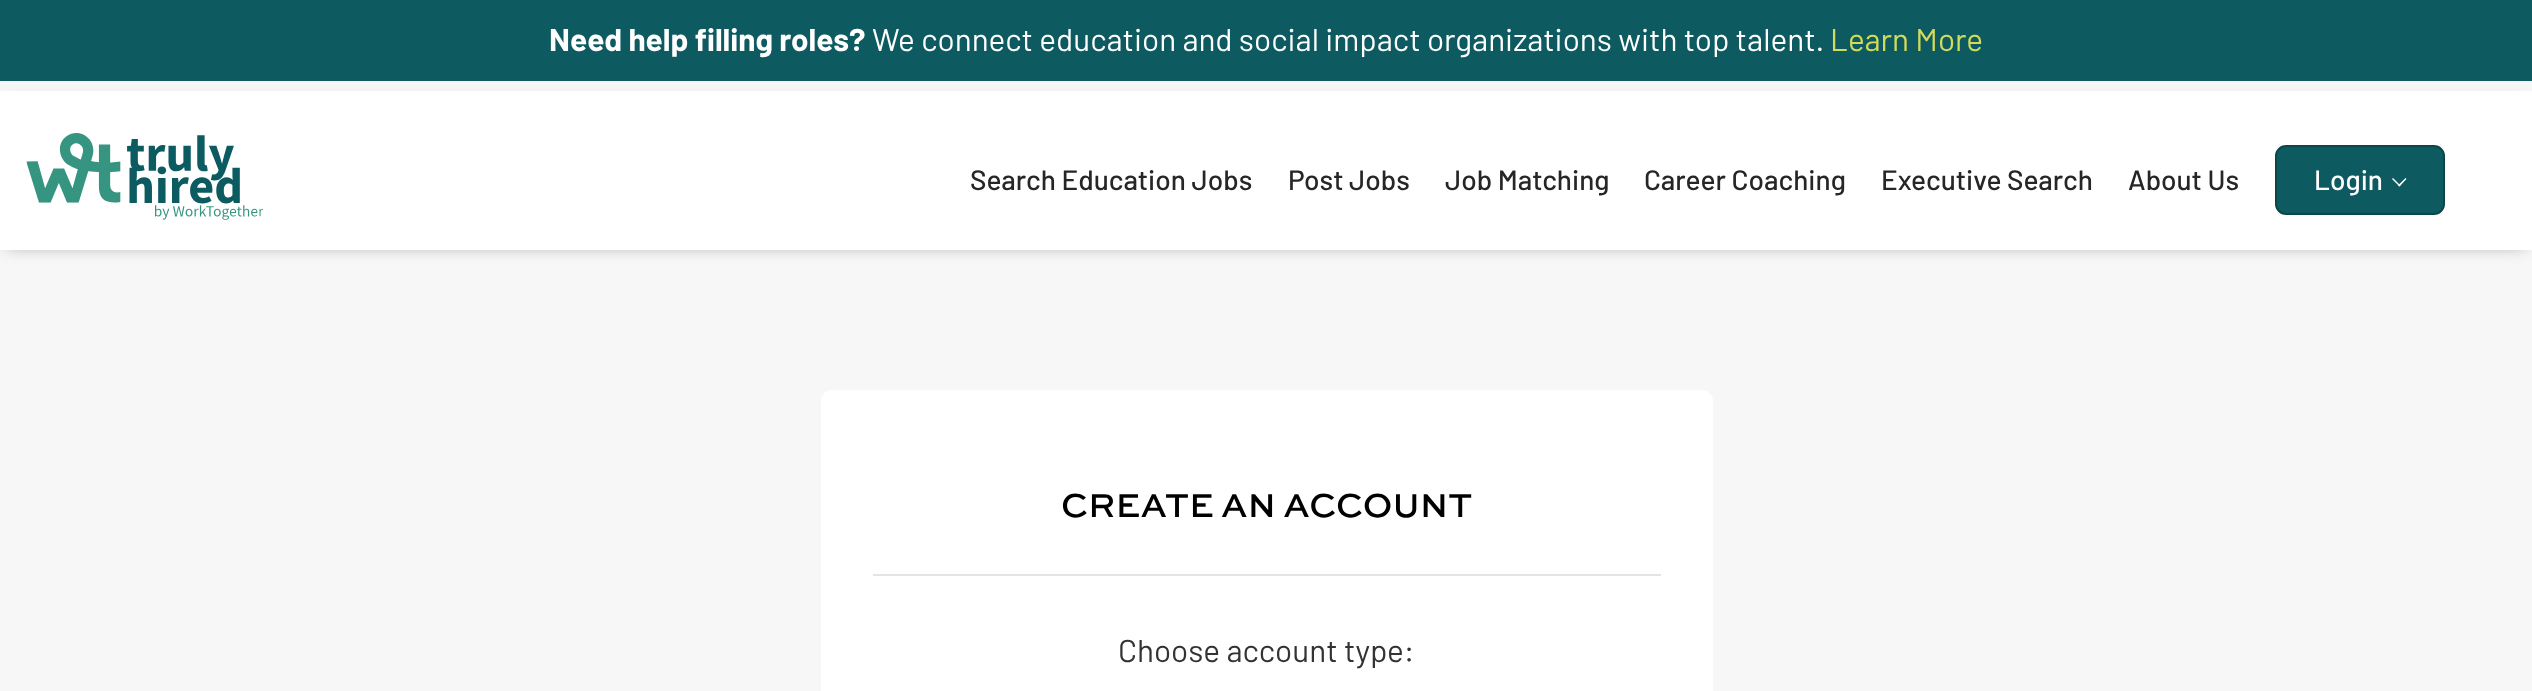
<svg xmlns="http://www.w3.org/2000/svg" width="2532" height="691">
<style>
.a{font:bold 31.5px Barlow;fill:#fff}
.b{font:31.5px Barlow;fill:#fff}
.c{font:31.5px Barlow;fill:#d2db5c}
.d{font:500 28px Barlow;fill:#262626}
.e{font:500 28px Barlow;fill:#fff}
.f{font:500 35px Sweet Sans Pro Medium;fill:#000}
.g{font:31.5px Barlow;fill:#333}
</style>
<rect width="100%" height="100%" fill="#f7f7f7"/>
<path fill="#0d5b60" d="M0 0h2532v81H0z"/>
<path fill="#0000004d" filter="blur(8px)" d="M7 102h2518v145H7z"/>
<path fill="#fff" d="M0 91h2532v159H0z"/>
<image href="1.png" x="26" y="133" width="238" height="87"/>
<rect fill="#0d5b60" stroke="#0a464a" stroke-width="2" x="2276" y="146" width="168" height="68" rx="10"/>
<path fill="#fff" d="M2406.5 179l-7 7.5l-1.5-1l7.5-7.5z"/>
<path fill="#fff" d="M2400.5 185.5l-1 1l-7.5-7.5l1-1z"/>
<rect fill="#fff" x="821" y="390" width="892" height="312" rx="11"/>
<path fill="#e4e4e4" d="M873 574h788v2H873z"/>
<text class="a" x="549" y="51">Need help filling roles?</text>
<text class="b" x="872" y="51">We connect education and social impact organizations with top talent.</text>
<text class="c" x="1830" y="51">Learn More</text>
<text class="d" x="970" y="190">Search Education Jobs</text>
<text class="d" x="1288" y="190">Post Jobs</text>
<text class="d" x="1445" y="190">Job Matching</text>
<text class="d" x="1644" y="190">Career Coaching</text>
<text class="d" x="1881" y="190">Executive Search</text>
<text class="d" x="2128" y="190">About Us</text>
<text class="e" x="2314" y="190">Login</text>
<text class="f" x="1061" y="517">CREATE AN ACCOUNT</text>
<text class="g" x="1118" y="662">Choose account type:</text>
</svg>
